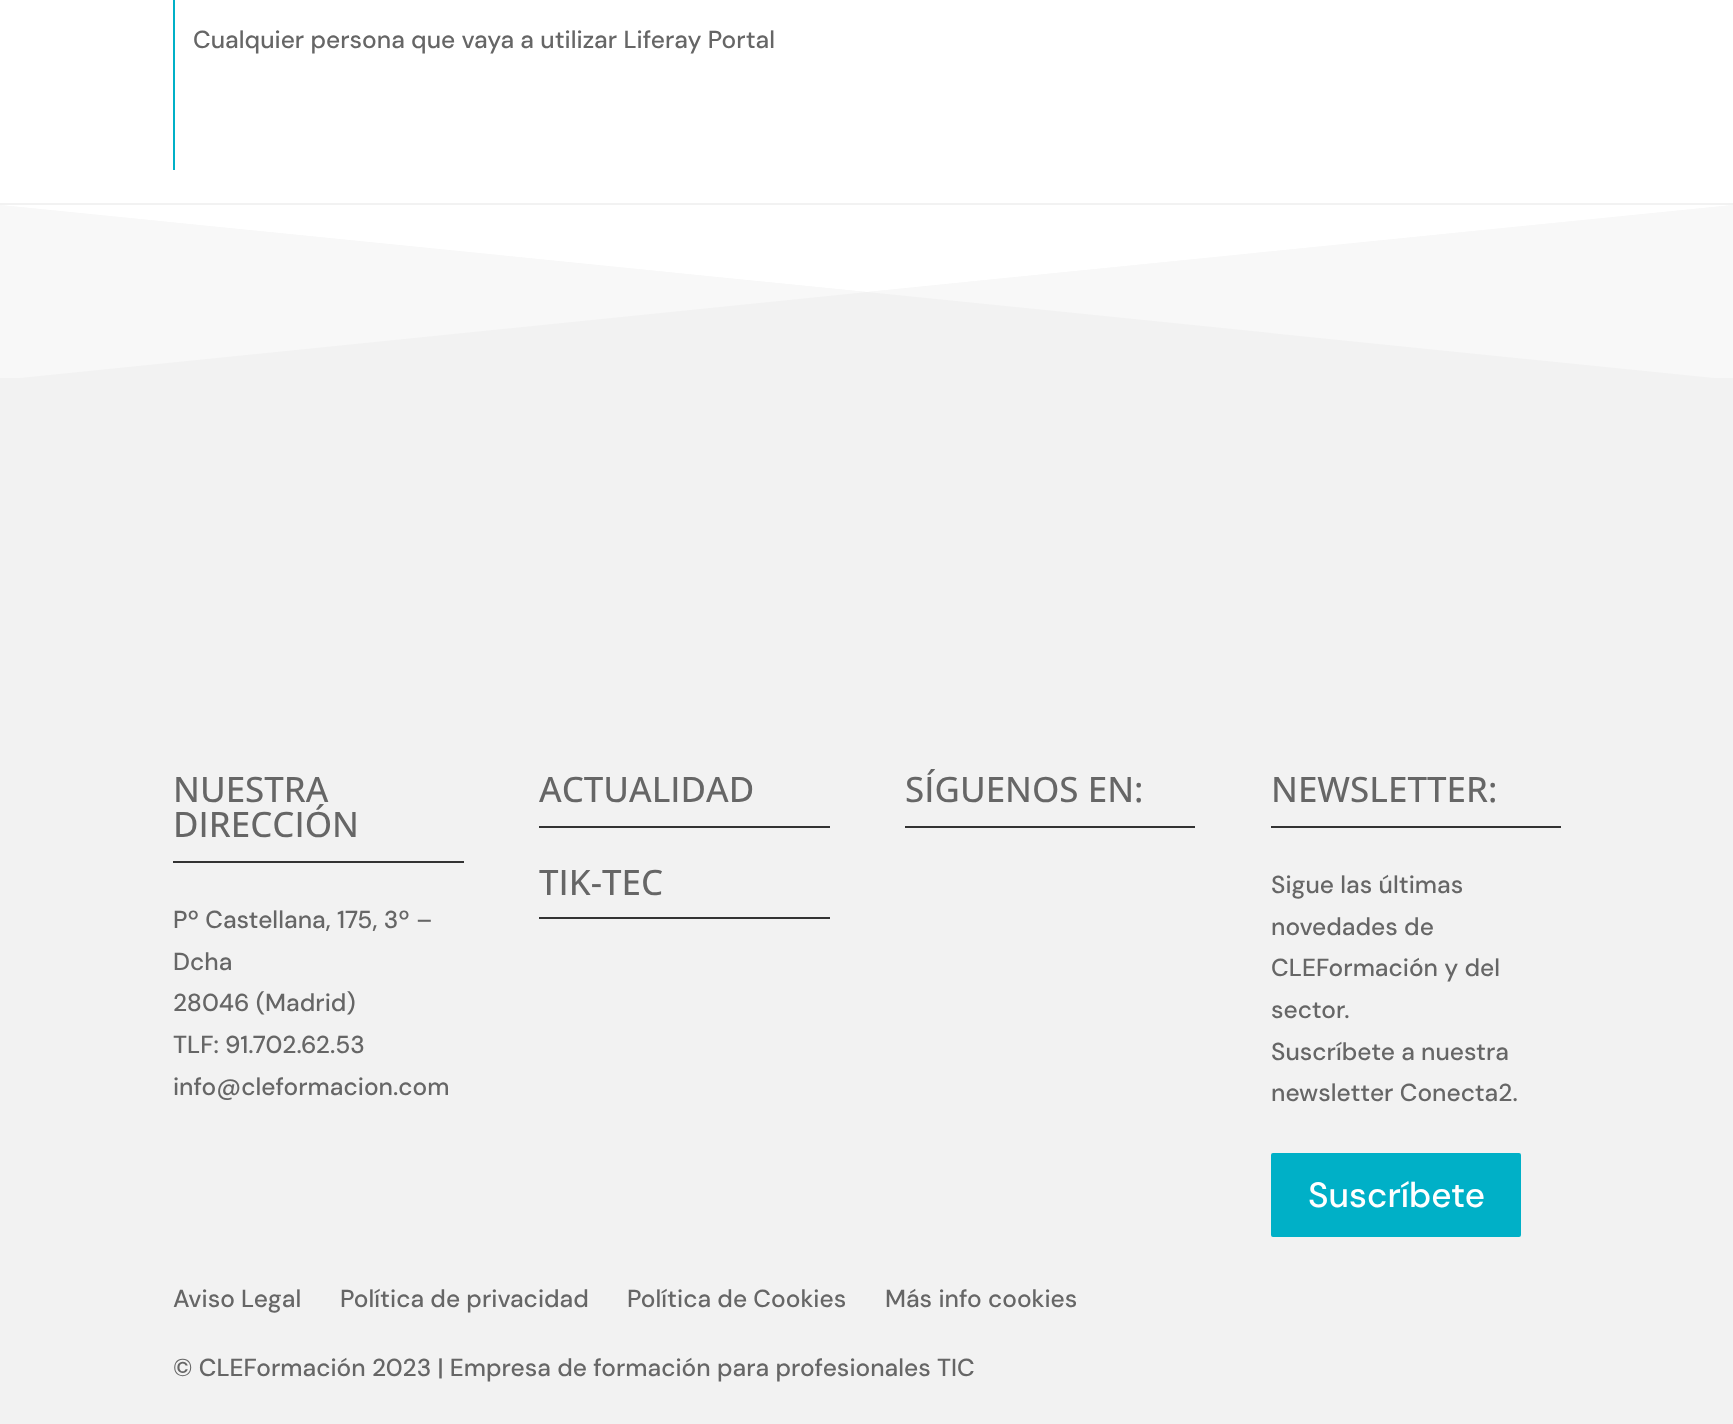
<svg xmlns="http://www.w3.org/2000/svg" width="1733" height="1424">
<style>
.a{font:500 24.5px DM Sans;fill:#666}
.b{font:500 35px Open Sans;fill:#666}
.c{font:500 35px DM Sans;fill:#fff}
</style>
<defs>
<clipPath id="clip1"><path d="M0 203h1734v175H0z"/></clipPath>
</defs>
<rect width="100%" height="100%" fill="#fff"/>
<path fill="#00b0c7" d="M173 0h2v170H173z"/>
<path fill="#f2f2f2" d="M0 203h1733v1221H0z"/>
<g clip-path="url(#clip1)">
<path fill="#f8f8f8" d="M0 205l867 87l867-87v175l-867-88l-867 88z"/>
</g>
<path fill="#fff" d="M0 205h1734l-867 87z"/>
<path fill="#333" d="M173 861h291v2H173z"/>
<path fill="#333" d="M539 826h291v2H539z"/>
<path fill="#333" d="M539 917h291v2H539z"/>
<path fill="#333" d="M905 826h290v2H905z"/>
<path fill="#333" d="M1271 826h290v2H1271z"/>
<rect fill="#00b0c7" stroke="#00b0c7" stroke-width="2" x="1272" y="1154" width="248" height="82" rx="1"/>
<text class="a" x="193" y="48">Cualquier persona que vaya a utilizar Liferay Portal</text>
<text class="b" x="173" y="802">NUESTRA</text>
<text class="b" x="173" y="837">DIRECCIÓN</text>
<text class="a" x="173" y="928">Pº Castellana, 175, 3º –</text>
<text class="a" x="173" y="970">Dcha</text>
<text class="a" x="173" y="1011">28046 (Madrid)</text>
<text class="a" x="173" y="1053">TLF: 91.702.62.53</text>
<text class="a" x="173" y="1095">info@cleformacion.com</text>
<text class="b" x="539" y="802">ACTUALIDAD</text>
<text class="b" x="539" y="895">TIK-TEC</text>
<text class="b" x="905" y="802">SÍGUENOS EN:</text>
<text class="b" x="1271" y="802">NEWSLETTER:</text>
<text class="a" x="1271" y="893">Sigue las últimas</text>
<text class="a" x="1271" y="935">novedades de</text>
<text class="a" x="1271" y="976">CLEFormación y del</text>
<text class="a" x="1271" y="1018">sector.</text>
<text class="a" x="1271" y="1060">Suscríbete a nuestra</text>
<text class="a" x="1271" y="1101">newsletter Conecta2.</text>
<text class="c" x="1308" y="1207">Suscríbete</text>
<text class="a" x="173" y="1307">Aviso Legal</text>
<text class="a" x="340" y="1307">Política de privacidad</text>
<text class="a" x="627" y="1307">Política de Cookies</text>
<text class="a" x="885" y="1307">Más info cookies</text>
<text class="a" x="173" y="1376">© CLEFormación 2023 | Empresa de formación para profesionales TIC</text>
</svg>
